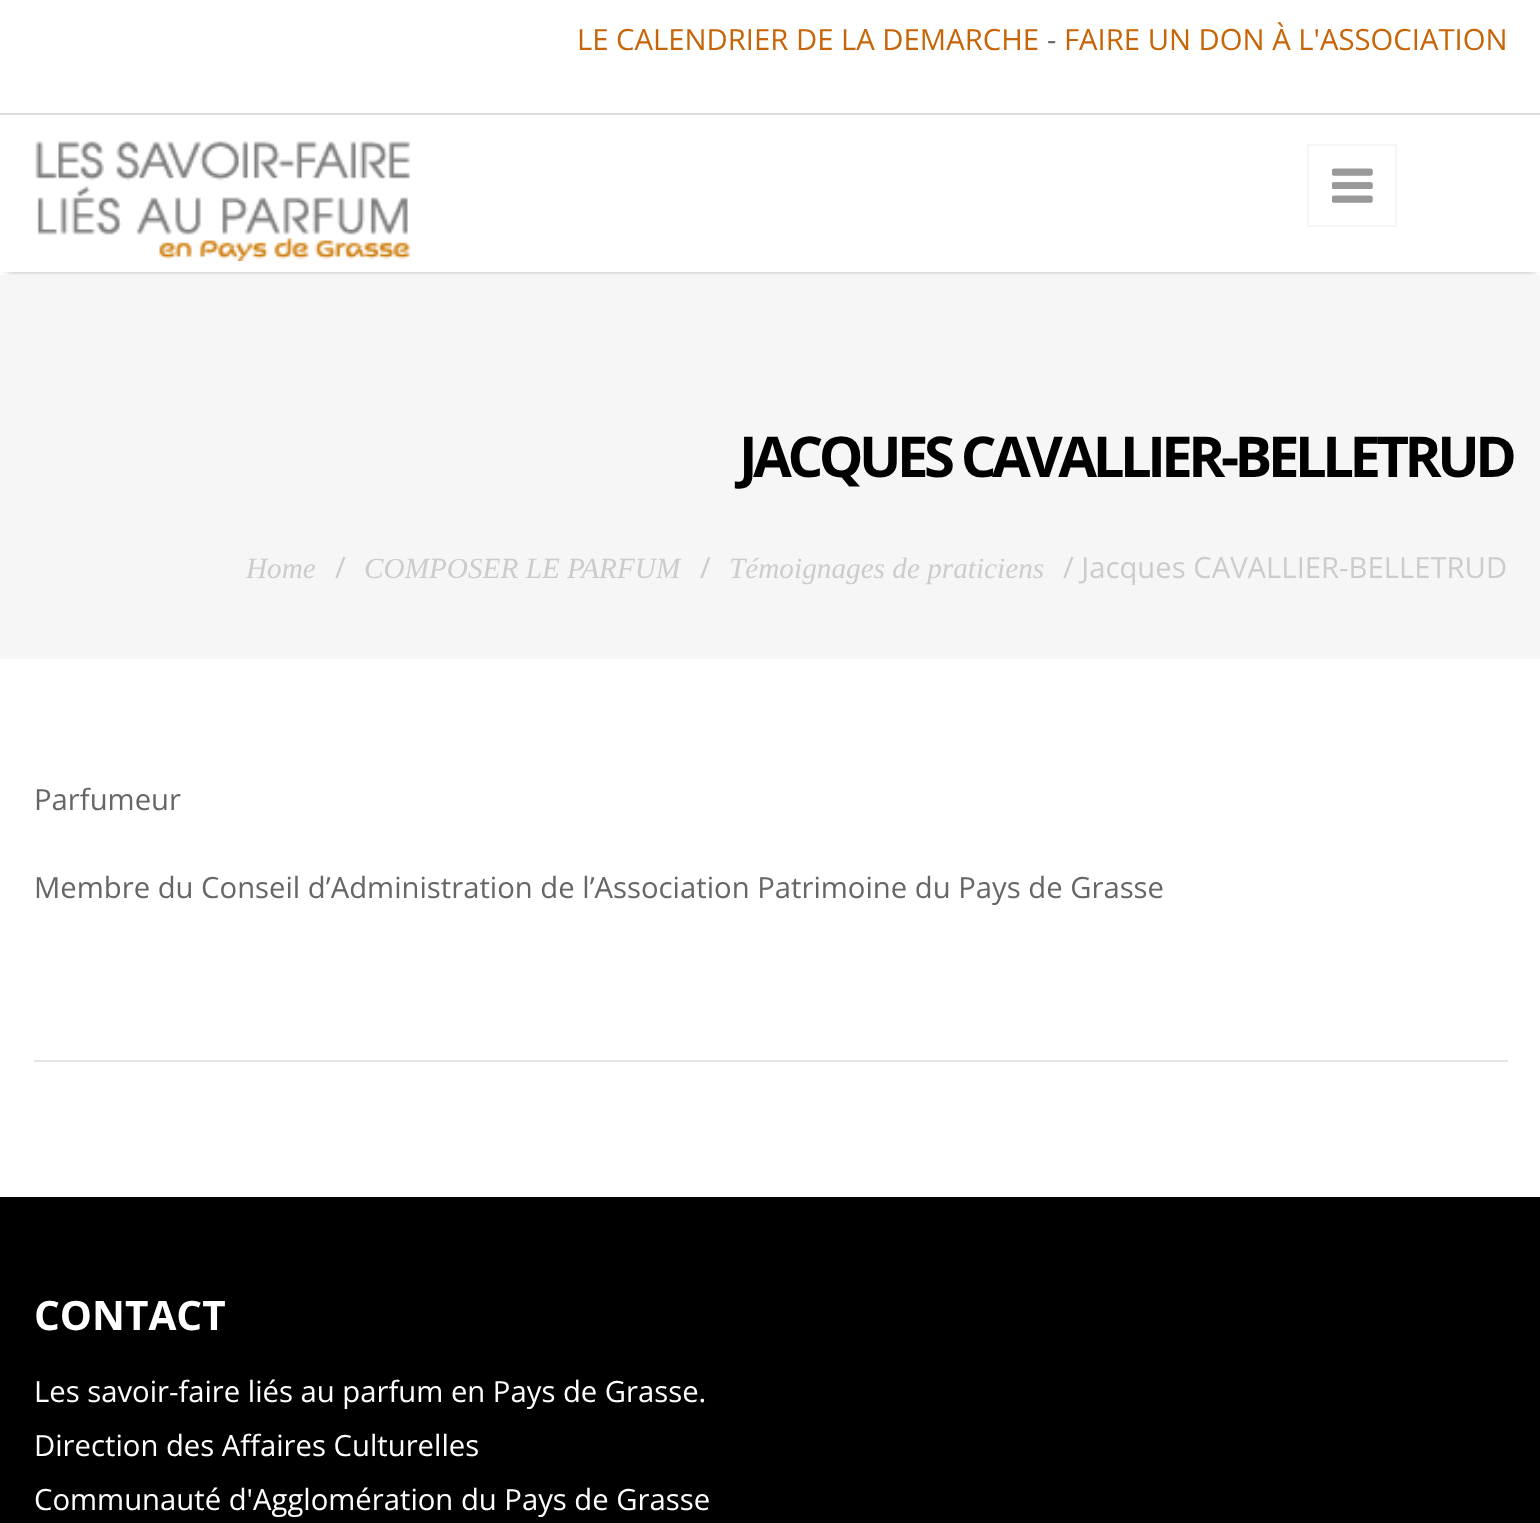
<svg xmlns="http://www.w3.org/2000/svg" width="1540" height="1523">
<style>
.a{font:29.25px Open Sans;fill:#c76406}
.b{font:29.25px Open Sans;fill:#666}
.c{font:bold 56.25px Open Sans;letter-spacing:-4.5px;fill:#000}
.d{font:italic 29.25px Liberation Serif;fill:#ccc}
.e{font:29.25px Open Sans;fill:#ccc}
.f{font:bold 40.5px Open Sans;fill:#fff}
.g{font:29.25px Open Sans;fill:#fff}
</style>
<defs>
<clipPath id="clip1"><path d="M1 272h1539v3H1z"/></clipPath>
</defs>
<rect width="100%" height="100%" fill="#fff"/>
<path fill="#ddd" d="M0 113h1540v2H0z"/>
<g clip-path="url(#clip1)">
<path fill="#808080" filter="blur(4.5px)" d="M7 126h1528v144H7z"/>
</g>
<image href="1.png" x="35" y="141" width="376" height="120"/>
<path fill="none" stroke="#f5f5f5" stroke-width="2" d="M1308 145h88v81H1308z"/>
<image href="2.png" x="1332" y="168" width="41" height="35"/>
<image href="3.png" x="1332" y="168" width="41" height="35"/>
<path fill="#f6f6f6" d="M0 275h1540v384H0z"/>
<path fill="#e5e5e5" d="M34 1060h1474v2H34z"/>
<path fill="#000" d="M0 1197h1540v326H0z"/>
<text class="a" x="577" y="50">LE CALENDRIER DE LA DEMARCHE</text>
<text class="b" x="1047" y="50">-</text>
<text class="a" x="1064" y="50">FAIRE UN DON À L'ASSOCIATION</text>
<text class="c" x="739" y="477">JACQUES CAVALLIER-BELLETRUD</text>
<text class="d" x="246" y="578">Home</text>
<text class="e" x="335" y="578">/</text>
<text class="d" x="364" y="578">COMPOSER LE PARFUM</text>
<text class="e" x="700" y="578">/</text>
<text class="d" x="729" y="578">Témoignages de praticiens</text>
<text class="e" x="1063" y="578">/ Jacques CAVALLIER-BELLETRUD</text>
<text class="b" x="34" y="810">Parfumeur</text>
<text class="b" x="34" y="898">Membre du Conseil d’Administration de l’Association Patrimoine du Pays de Grasse</text>
<text class="f" x="34" y="1330">CONTACT</text>
<text class="g" x="34" y="1402">Les savoir-faire liés au parfum en Pays de Grasse.</text>
<text class="g" x="34" y="1456">Direction des Affaires Culturelles</text>
<text class="g" x="34" y="1510">Communauté d'Agglomération du Pays de Grasse</text>
</svg>
